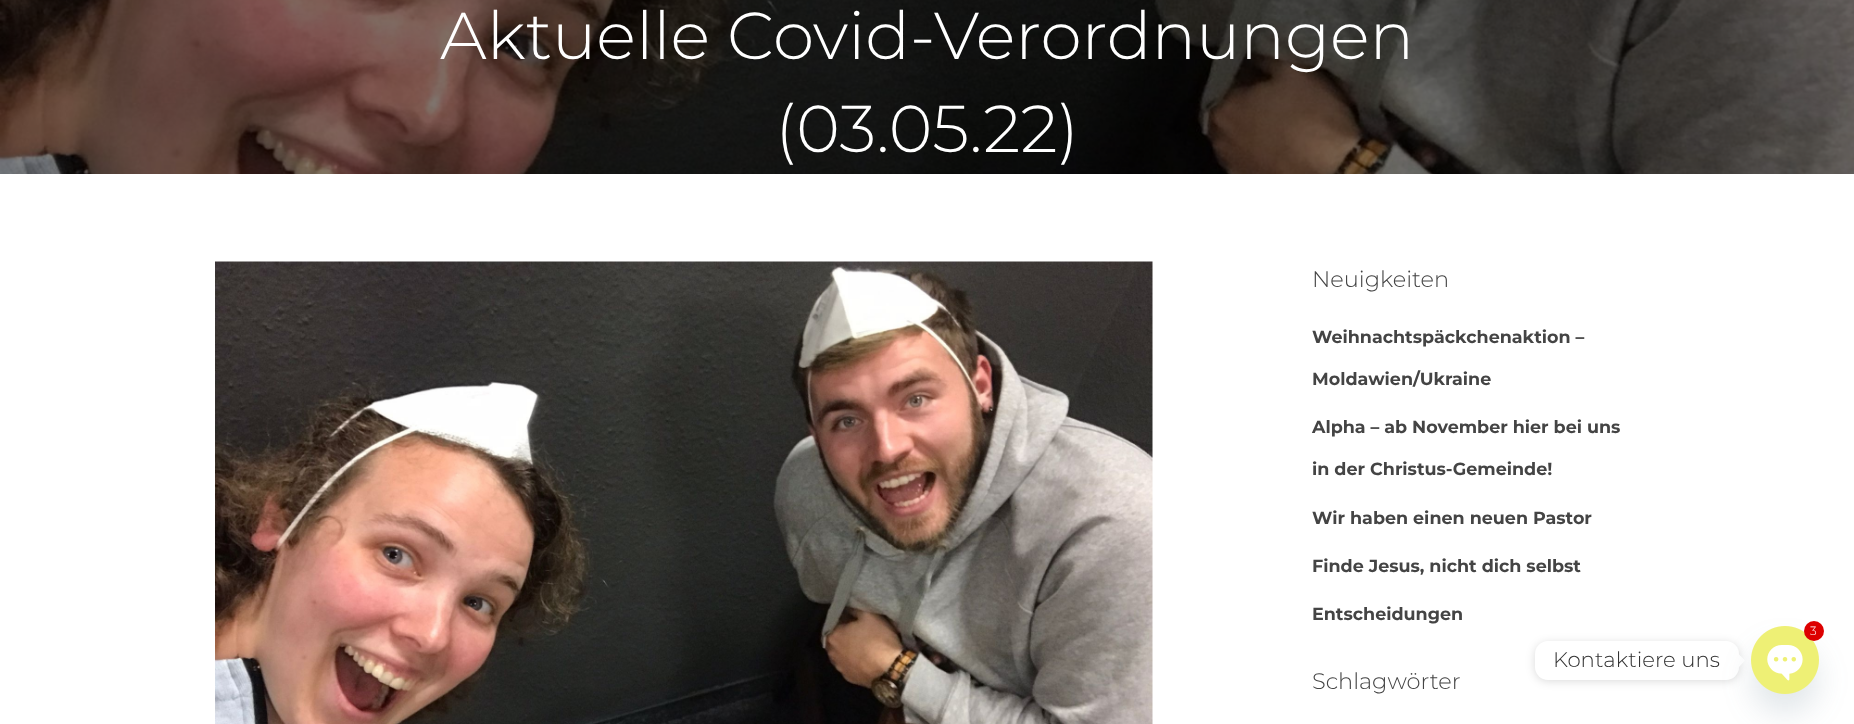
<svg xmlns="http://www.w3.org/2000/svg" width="1854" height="724">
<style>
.a{font:300 66.25px Montserrat;fill:#fff}
.b{font:300 22.5px Montserrat;fill:#444}
.c{font:bold 17.5px Montserrat;fill:#444}
.d{font:300 12px Montserrat;fill:#fff}
.e{font:300 21.25px Montserrat;fill:#333}
</style>
<rect width="100%" height="100%" fill="#fff"/>
<image href="1.png" x="0" y="0" width="1854" height="174"/>
<path fill="#00000080" d="M0 0h1854v174H0z"/>
<image href="2.png" x="215" y="261" width="938" height="463"/>
<rect fill="#00000026" filter="blur(5px)" x="1535" y="643" width="204" height="38" rx="13"/>
<rect fill="#fff" x="1535" y="641" width="204" height="39" rx="13"/>
<path fill="#fff" d="M1739 667v-12.5l6 6z"/>
<rect fill="#49687e29" filter="blur(15px)" x="1751" y="646" width="68" height="68" rx="34"/>
<image href="3.png" x="1751" y="626" width="68" height="68"/>
<circle fill="#d00" cx="1814" cy="631" r="10"/>
<text class="a" x="440" y="59">Aktuelle Covid-Verordnungen</text>
<text class="a" x="775" y="152">(03.05.22)</text>
<text class="b" x="1312" y="287">Neuigkeiten</text>
<text class="c" x="1312" y="343">Weihnachtspäckchenaktion –</text>
<text class="c" x="1312" y="385">Moldawien/Ukraine</text>
<text class="c" x="1312" y="433">Alpha – ab November hier bei uns</text>
<text class="c" x="1312" y="475">in der Christus-Gemeinde!</text>
<text class="c" x="1312" y="524">Wir haben einen neuen Pastor</text>
<text class="c" x="1312" y="572">Finde Jesus, nicht dich selbst</text>
<text class="c" x="1312" y="620">Entscheidungen</text>
<text class="b" x="1312" y="689">Schlagwörter</text>
<text class="d" x="1810" y="635">3</text>
<text class="e" x="1553" y="667">Kontaktiere uns</text>
</svg>
